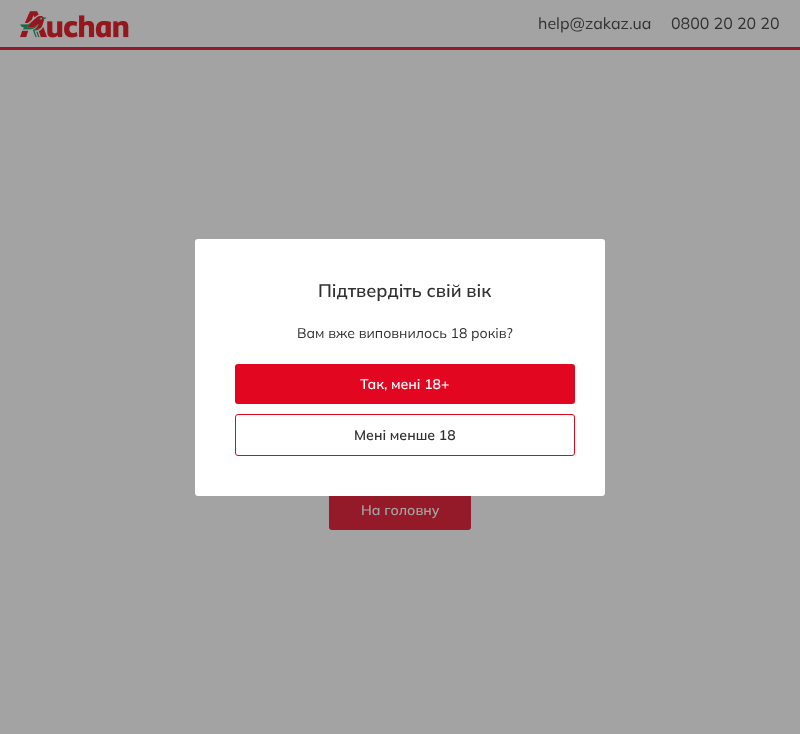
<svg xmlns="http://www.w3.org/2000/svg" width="800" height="734">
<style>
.a{font:16px Mulish;fill:#313131}
.b{font:600 14px Mulish;fill:#a3a3a3}
.c{font:600 18px Mulish;fill:#313131}
.d{font:14px Mulish;fill:#313131}
.e{font:600 14px Mulish;fill:#fff}
.f{font:600 14px Mulish;fill:#313131}
</style>
<rect width="100%" height="100%" fill="#a3a3a3"/>
<path fill="#941a29" d="M0 47h800v3H0z"/>
<image href="1.png" x="20" y="11" width="109" height="27"/>
<rect fill="#941a29" x="329" y="490" width="142" height="40" rx="3"/>
<rect fill="#fff" x="195" y="239" width="410" height="257" rx="3"/>
<rect fill="#e30620" x="235" y="364" width="340" height="40" rx="3"/>
<rect fill="none" stroke="#e30620" x="235.5" y="414.5" width="339" height="41" rx="2.5"/>
<text class="a" x="538" y="29">help@zakaz.ua</text>
<text class="a" x="671" y="29">0800 20 20 20</text>
<text class="b" x="361" y="515">На головну</text>
<text class="c" x="318" y="297">Підтвердіть свій вік</text>
<text class="d" x="297" y="338">Вам вже виповнилось 18 років?</text>
<text class="e" x="360" y="389">Так, мені 18+</text>
<text class="f" x="354" y="440">Мені менше 18</text>
</svg>
